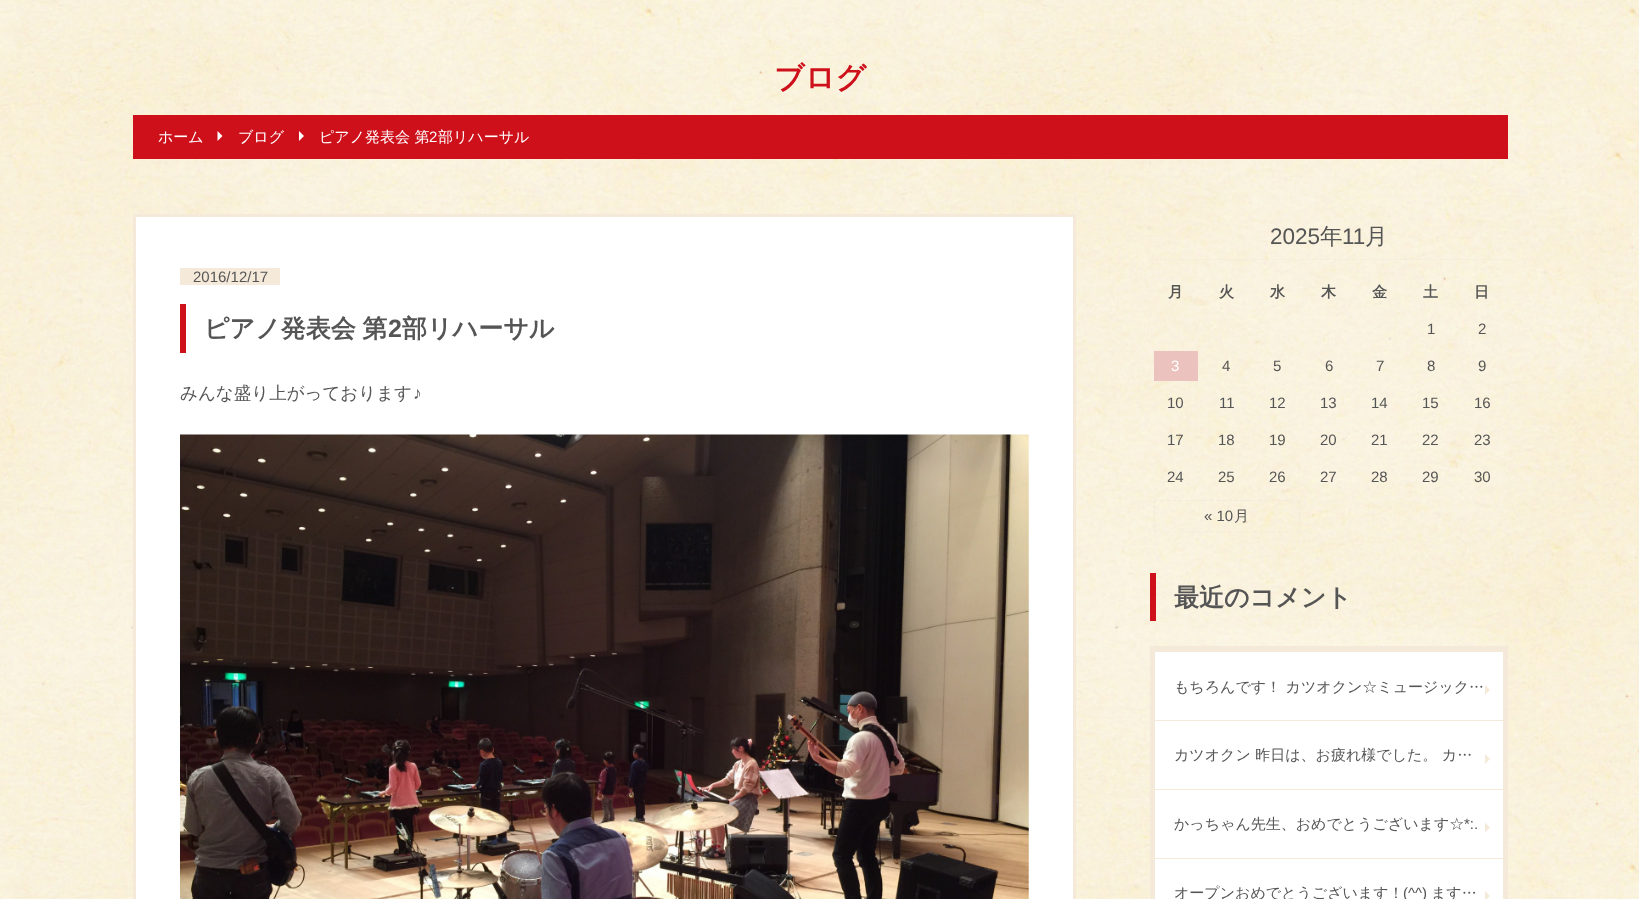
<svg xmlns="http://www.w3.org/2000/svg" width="1639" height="899">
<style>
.a{font:bold 30px WenQuanYi Zen Hei;fill:#ce101b}
.b{font:500 15px WenQuanYi Zen Hei;fill:#fff}
.c{font:15px Liberation Sans;fill:#fff}
.d{font:15px Liberation Sans;fill:#555}
.e{font:bold 25px WenQuanYi Zen Hei;fill:#555}
.f{font:bold 25px Liberation Sans;fill:#555}
.g{font:500 17.5px WenQuanYi Zen Hei;fill:#555}
.h{font:17.5px Liberation Sans;fill:#555}
.i{font:22.5px Liberation Sans;fill:#555}
.j{font:500 22.5px WenQuanYi Zen Hei;fill:#555}
.k{font:bold 15px WenQuanYi Zen Hei;fill:#555}
.l{font:500 15px WenQuanYi Zen Hei;fill:#555}
</style>
<rect width="100%" height="100%" fill="#fff"/>
<image href="1.png" x="0" y="0" width="1639" height="899"/>
<path fill="#ce101b" d="M133 115h1375v44H133z"/>
<path fill="#fff" d="M217.5 141v-10l5 5z"/>
<path fill="#fff" d="M299 141v-10l5 5z"/>
<path fill="#fff" stroke="#f5e9da" stroke-width="3" d="M134.5 215.5h940v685H134.5z"/>
<path fill="#f5e9da" d="M180 268h100v17H180z"/>
<path fill="#ce101b" d="M180 304h6v49H180z"/>
<image href="2.png" x="180" y="434" width="849" height="465"/>
<path fill="none" stroke="#f5e9da" stroke-width="1.2" stroke-dasharray="1.25 1.25" d="M1150 259.5h357.5"/>
<path fill="#ebc2bd" d="M1154 351h44v30H1154z"/>
<path fill="none" stroke="#f5e9da" stroke-width="1.2" stroke-dasharray="3.75 2.45" d="M1154 500.5h146"/>
<path fill="none" stroke="#f5e9da" stroke-width="1.2" stroke-dasharray="3.75 2" d="M1299.5 500v32.5"/>
<path fill="none" stroke="#f5e9da" stroke-width="1.2" stroke-dasharray="3.75 2.45" d="M1154 532h146"/>
<path fill="none" stroke="#f5e9da" stroke-width="1.2" stroke-dasharray="3.75 2" d="M1154.5 500v32.5"/>
<path fill="#ce101b" d="M1150 573h6v48H1150z"/>
<path fill="#f5e9da" d="M1150 646h358v253H1150z"/>
<path fill="#fff" d="M1155 652h348v68H1155z"/>
<path fill="#f5e9da" d="M1485 695v-10l5 5z"/>
<path fill="#fff" d="M1155 721h348v68H1155z"/>
<path fill="#f5e9da" d="M1485 764v-10l5 5z"/>
<path fill="#fff" d="M1155 790h348v68H1155z"/>
<path fill="#f5e9da" d="M1485 832.5v-10l5 5z"/>
<path fill="#fff" d="M1155 859h348v40H1155z"/>
<path fill="#f5e9da" d="M1485 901v-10l5 5z"/>
<text class="a" x="774" y="88">ブログ</text>
<text class="b" x="158" y="142">ホーム</text>
<text class="b" x="238" y="142">ブログ</text>
<text class="b" x="319" y="142">ピアノ発表会 第</text>
<text class="c" x="429" y="142">2</text>
<text class="b" x="438" y="142">部リハーサル</text>
<text class="d" x="193" y="282">2016/12/17</text>
<text class="e" x="204" y="337" word-spacing="-1">ピアノ発表会 第</text>
<text class="f" x="388" y="337">2</text>
<text class="e" x="402" y="337">部リハーサル</text>
<text class="g" x="180" y="399">みんな盛り上がっております</text>
<text class="h" x="413" y="399">♪</text>
<text class="i" x="1270" y="244">2025</text>
<text class="j" x="1320" y="244">年</text>
<text class="i" x="1342" y="244">11</text>
<text class="j" x="1365" y="244">月</text>
<text class="k" x="1168" y="297">月</text>
<text class="k" x="1219" y="297">火</text>
<text class="k" x="1270" y="297">水</text>
<text class="k" x="1321" y="297">木</text>
<text class="k" x="1372" y="297">金</text>
<text class="k" x="1423" y="297">土</text>
<text class="k" x="1474" y="297">日</text>
<text class="d" x="1427" y="334">1</text>
<text class="d" x="1478" y="334">2</text>
<text class="c" x="1171" y="371">3</text>
<text class="d" x="1222" y="371">4</text>
<text class="d" x="1273" y="371">5</text>
<text class="d" x="1325" y="371">6</text>
<text class="d" x="1376" y="371">7</text>
<text class="d" x="1427" y="371">8</text>
<text class="d" x="1478" y="371">9</text>
<text class="d" x="1167" y="408">10</text>
<text class="d" x="1219" y="408">11</text>
<text class="d" x="1269" y="408">12</text>
<text class="d" x="1320" y="408">13</text>
<text class="d" x="1371" y="408">14</text>
<text class="d" x="1422" y="408">15</text>
<text class="d" x="1474" y="408">16</text>
<text class="d" x="1167" y="445">17</text>
<text class="d" x="1218" y="445">18</text>
<text class="d" x="1269" y="445">19</text>
<text class="d" x="1320" y="445">20</text>
<text class="d" x="1371" y="445">21</text>
<text class="d" x="1422" y="445">22</text>
<text class="d" x="1474" y="445">23</text>
<text class="d" x="1167" y="482">24</text>
<text class="d" x="1218" y="482">25</text>
<text class="d" x="1269" y="482">26</text>
<text class="d" x="1320" y="482">27</text>
<text class="d" x="1371" y="482">28</text>
<text class="d" x="1422" y="482">29</text>
<text class="d" x="1474" y="482">30</text>
<text class="d" x="1204" y="521">« 10</text>
<text class="l" x="1234" y="521">月</text>
<text class="e" x="1174" y="606">最近のコメント</text>
<text class="l" x="1174" y="692">もちろんです！ カツオクン☆ミュージック…</text>
<text class="l" x="1174" y="760">カツオクン 昨日は、お疲れ様でした。 カ…</text>
<text class="l" x="1174" y="829">かっちゃん先生、おめでとうございます☆</text>
<text class="d" x="1464" y="829">*:.</text>
<text class="l" x="1174" y="898">オープンおめでとうございます！</text>
<text class="d" x="1403" y="898">(^^)</text>
<text class="l" x="1431" y="898">ます…</text>
</svg>
